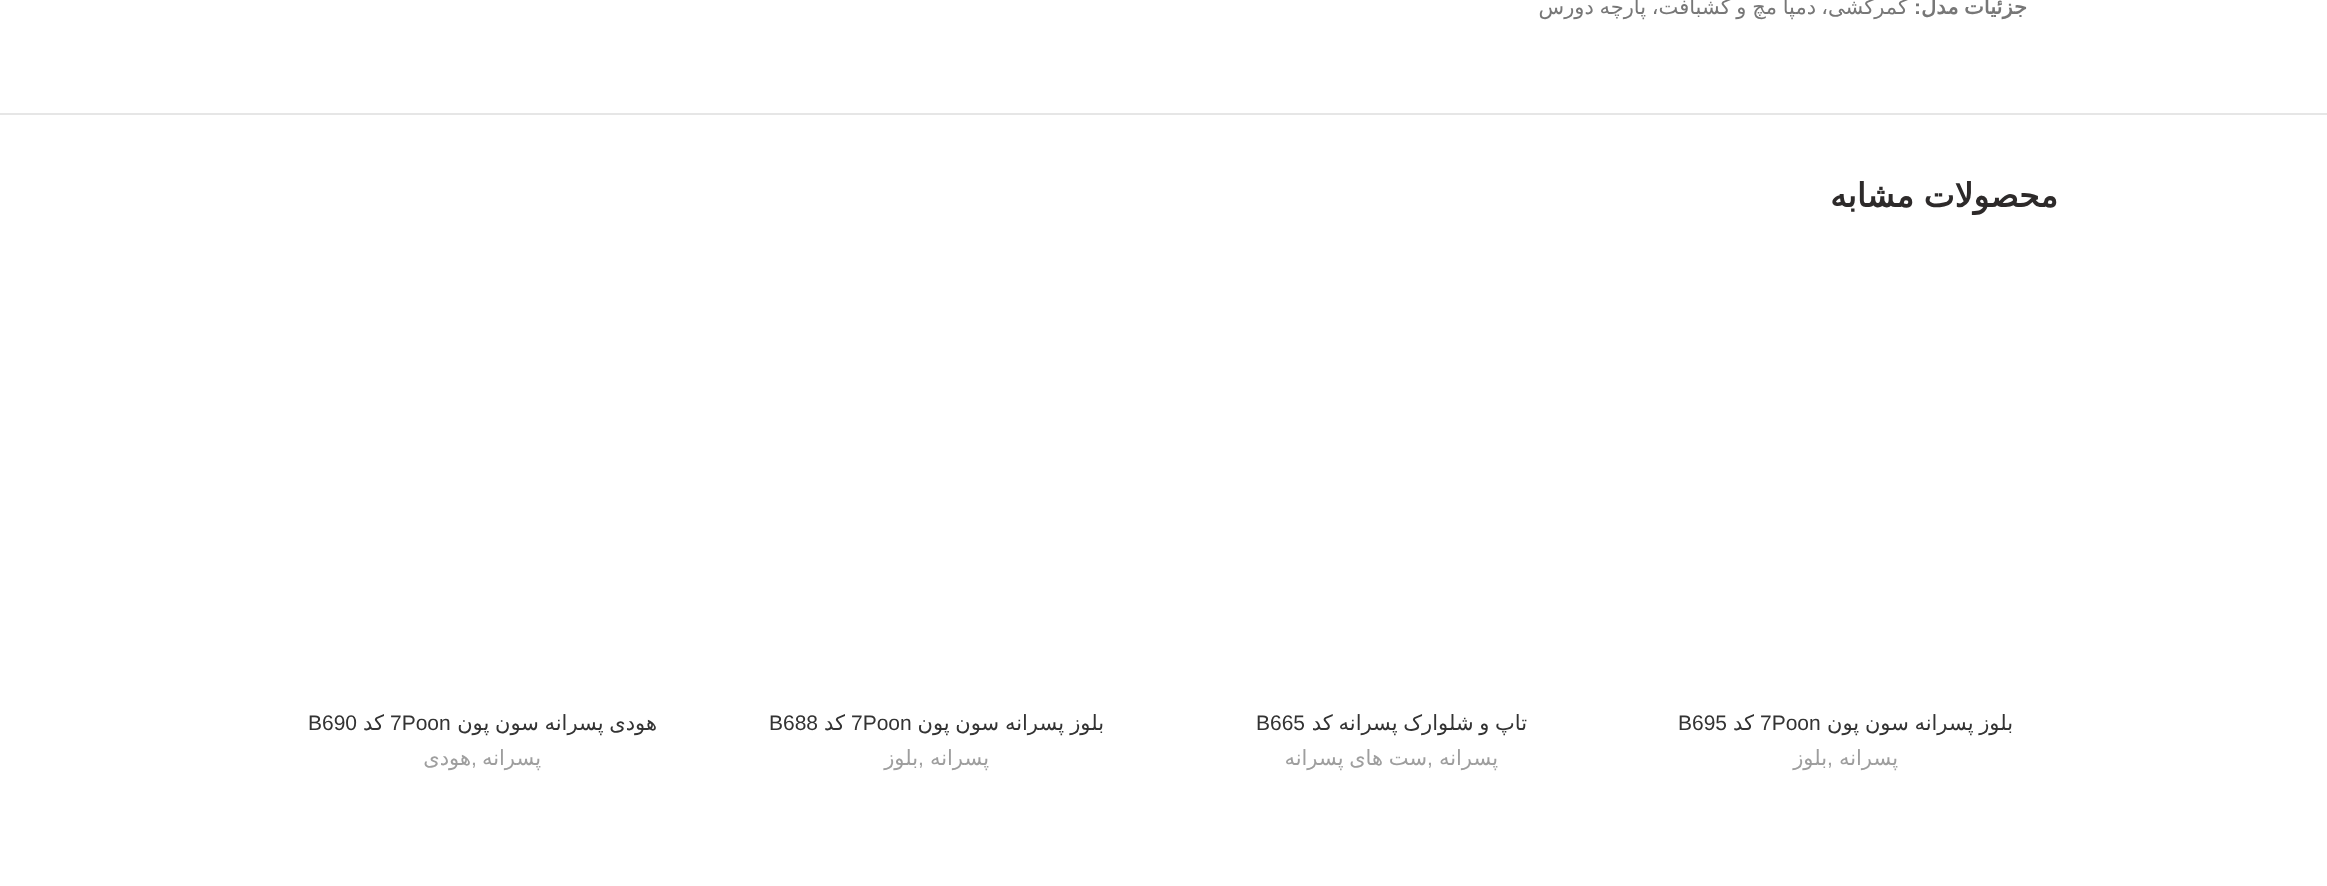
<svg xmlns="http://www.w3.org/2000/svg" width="2327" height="886">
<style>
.a{font:bold 21px DejaVu Sans;direction:rtl;fill:#777}
.b{font:bold 21px Liberation Sans;direction:rtl;fill:#777}
.c{font:21px DejaVu Sans;direction:rtl;fill:#777}
.d{font:bold 33px DejaVu Sans;direction:rtl;fill:#2d2a2a}
.e{font:21px DejaVu Sans;direction:rtl;fill:#333}
.f{font:21px Liberation Sans;fill:#333}
.g{font:21px DejaVu Sans;direction:rtl;fill:#9e9e9e}
.h{font:21px Liberation Sans;fill:#9e9e9e}
</style>
<rect width="100%" height="100%" fill="#fff"/>
<path fill="#e6e6e6" d="M0 113h2327v2H0z"/>
<text class="a" x="2027" y="14" word-spacing="-1">جزئیات مدل</text>
<text class="b" x="1921" y="14">:</text>
<text class="c" x="1908" y="14">کمرکشی،</text>
<text class="c" x="1816" y="14" word-spacing="-1">دمپا مچ و کشبافت، پارچه دورس</text>
<text class="d" x="2058" y="207" word-spacing="-1">محصولات مشابه</text>
<text class="e" x="2013" y="730" word-spacing="-1">بلوز پسرانه سون پون</text>
<text class="f" x="1760" y="730">7Poon</text>
<text class="e" x="1754" y="730">کد</text>
<text class="f" x="1678" y="730">B695</text>
<text class="g" x="1898" y="765">پسرانه</text>
<text class="h" x="1827" y="765">,</text>
<text class="g" x="1827" y="765">بلوز</text>
<text class="e" x="1527" y="730" word-spacing="-1">تاپ و شلوارک پسرانه کد</text>
<text class="f" x="1256" y="730">B665</text>
<text class="g" x="1498" y="765">پسرانه</text>
<text class="h" x="1427" y="765">,</text>
<text class="g" x="1427" y="765" word-spacing="-1">ست های پسرانه</text>
<text class="e" x="1104" y="730">بلوز</text>
<text class="e" x="1064" y="730" word-spacing="-1">پسرانه سون پون</text>
<text class="f" x="851" y="730">7Poon</text>
<text class="e" x="845" y="730">کد</text>
<text class="f" x="769" y="730">B688</text>
<text class="g" x="989" y="765">پسرانه</text>
<text class="h" x="918" y="765">,</text>
<text class="g" x="918" y="765">بلوز</text>
<text class="e" x="657" y="730" word-spacing="-1">هودی پسرانه سون پون</text>
<text class="f" x="390" y="730">7Poon</text>
<text class="e" x="384" y="730">کد</text>
<text class="f" x="308" y="730">B690</text>
<text class="g" x="541" y="765">پسرانه</text>
<text class="h" x="471" y="765">,</text>
<text class="g" x="471" y="765">هودی</text>
</svg>
